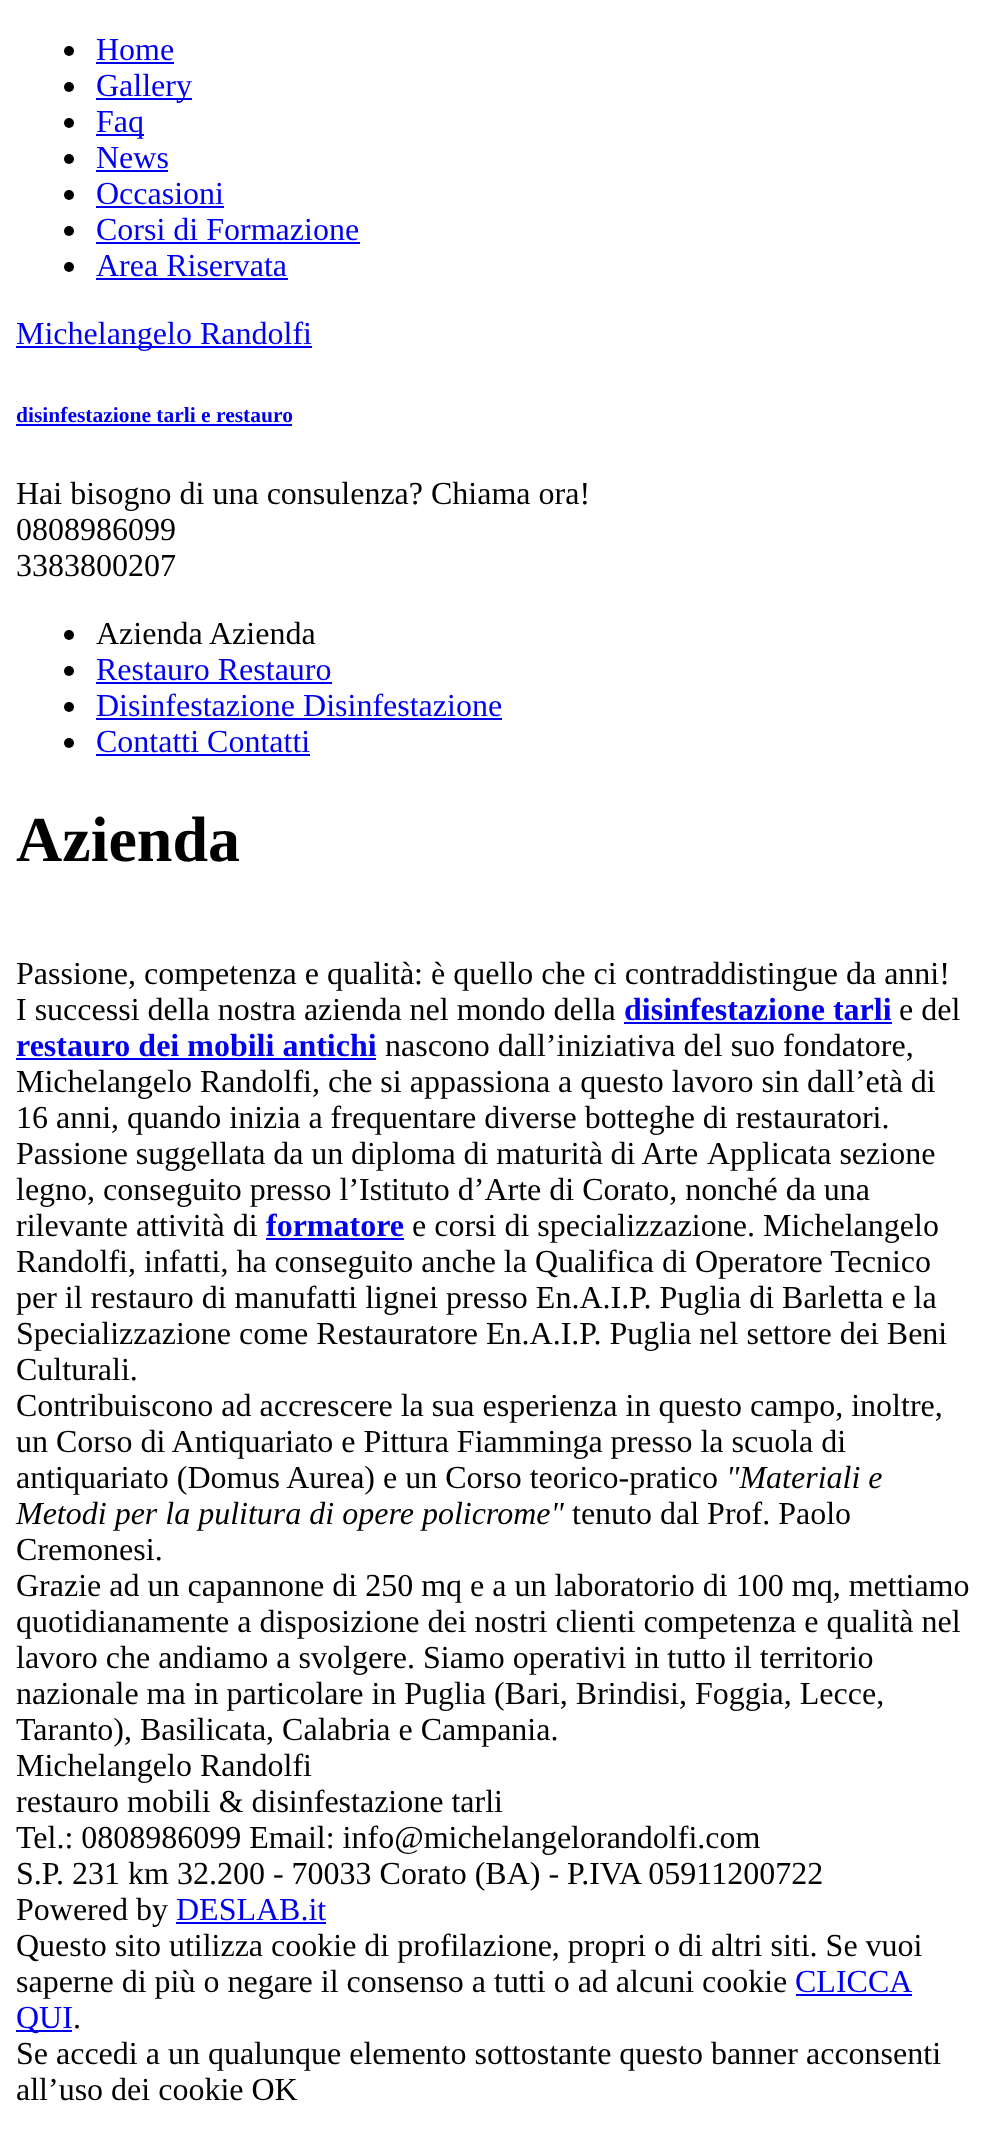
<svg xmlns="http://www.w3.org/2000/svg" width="988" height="2136">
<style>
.a{font:32px Liberation Serif;fill:#00e}
.b{font:bold 21.5px Liberation Serif;fill:#00e}
.c{font:32px Liberation Serif;fill:#000}
.d{font:bold 64px Liberation Serif;fill:#000}
.e{font:bold 32px Liberation Serif;fill:#00e}
.f{font:italic 32px Liberation Serif;fill:#000}
</style>
<rect width="100%" height="100%" fill="#fff"/>
<circle fill="#000" cx="69" cy="51" r="5"/>
<path fill="#00e" d="M96 62h78v2H96z"/>
<circle fill="#000" cx="69" cy="87" r="5"/>
<path fill="#00e" d="M96 98h96v2H96z"/>
<circle fill="#000" cx="69" cy="123" r="5"/>
<path fill="#00e" d="M96 134h48v2H96z"/>
<circle fill="#000" cx="69" cy="159" r="5"/>
<path fill="#00e" d="M96 170h72v2H96z"/>
<circle fill="#000" cx="69" cy="195" r="5"/>
<path fill="#00e" d="M96 206h128v2H96z"/>
<circle fill="#000" cx="69" cy="231" r="5"/>
<path fill="#00e" d="M96 242h264v2H96z"/>
<circle fill="#000" cx="69" cy="267" r="5"/>
<path fill="#00e" d="M96 278h192v2H96z"/>
<path fill="#00e" d="M16 346h296v2H16z"/>
<path fill="#00e" d="M16 424h276v2H16z"/>
<circle fill="#000" cx="69" cy="635" r="5"/>
<circle fill="#000" cx="69" cy="671" r="5"/>
<path fill="#00e" d="M96 682h236v2H96z"/>
<circle fill="#000" cx="69" cy="707" r="5"/>
<path fill="#00e" d="M96 718h406v2H96z"/>
<circle fill="#000" cx="69" cy="743" r="5"/>
<path fill="#00e" d="M96 754h214v2H96z"/>
<path fill="#00e" d="M624 1022h268v2H624z"/>
<path fill="#00e" d="M16 1058h360v2H16z"/>
<path fill="#00e" d="M266 1238h138v2H266z"/>
<path fill="#00e" d="M176 1922h150v2H176z"/>
<path fill="#00e" d="M796 1994h116v2H796z"/>
<path fill="#00e" d="M16 2030h56v2H16z"/>
<text class="a" x="96" y="60">Home</text>
<text class="a" x="96" y="96">Gallery</text>
<text class="a" x="96" y="132">Faq</text>
<text class="a" x="96" y="168">News</text>
<text class="a" x="96" y="204">Occasioni</text>
<text class="a" x="96" y="240">Corsi di Formazione</text>
<text class="a" x="96" y="276">Area Riservata</text>
<text class="a" x="16" y="344">Michelangelo Randolfi</text>
<text class="b" x="16" y="422">disinfestazione tarli e restauro</text>
<text class="c" x="16" y="504">Hai bisogno di una consulenza? Chiama ora!</text>
<text class="c" x="16" y="540">0808986099</text>
<text class="c" x="16" y="576">3383800207</text>
<text class="c" x="96" y="644">Azienda</text>
<text class="c" x="209" y="644">Azienda</text>
<text class="a" x="96" y="680">Restauro Restauro</text>
<text class="a" x="96" y="716">Disinfestazione Disinfestazione</text>
<text class="a" x="96" y="752">Contatti Contatti</text>
<text class="d" x="16" y="861">Azienda</text>
<text class="c" x="16" y="984">Passione, competenza e qualità: è quello che ci contraddistingue da anni!</text>
<text class="c" x="16" y="1020">I successi della nostra azienda nel mondo della</text>
<text class="e" x="624" y="1020">disinfestazione tarli</text>
<text class="c" x="899" y="1020">e del</text>
<text class="e" x="16" y="1056">restauro dei mobili antichi</text>
<text class="c" x="385" y="1056">nascono dall’iniziativa del suo fondatore,</text>
<text class="c" x="16" y="1092">Michelangelo Randolfi, che si appassiona a questo lavoro sin dall’età di</text>
<text class="c" x="16" y="1128">16 anni, quando inizia a frequentare diverse botteghe di restauratori.</text>
<text class="c" x="16" y="1164" word-spacing="-0.25">Passione suggellata da un diploma di maturità di Arte</text>
<text class="c" x="707" y="1164">Applicata sezione</text>
<text class="c" x="16" y="1200">legno, conseguito presso l’Istituto d’Arte di Corato, nonché da una</text>
<text class="c" x="16" y="1236">rilevante attività di</text>
<text class="e" x="266" y="1236">formatore</text>
<text class="c" x="412" y="1236">e corsi di specializzazione. Michelangelo</text>
<text class="c" x="16" y="1272">Randolfi, infatti, ha conseguito anche la Qualifica di Operatore Tecnico</text>
<text class="c" x="16" y="1308">per il restauro di manufatti lignei presso En.A.I.P. Puglia di Barletta e la</text>
<text class="c" x="16" y="1344">Specializzazione come Restauratore En.A.I.P. Puglia nel settore dei Beni</text>
<text class="c" x="16" y="1380">Culturali.</text>
<text class="c" x="16" y="1416">Contribuiscono ad accrescere la sua esperienza in questo campo, inoltre,</text>
<text class="c" x="16" y="1452">un Corso di Antiquariato e Pittura Fiamminga presso la scuola di</text>
<text class="c" x="16" y="1488">antiquariato (Domus Aurea) e un Corso teorico-pratico</text>
<text class="f" x="726" y="1488">"Materiali e</text>
<text class="f" x="16" y="1524">Metodi per la pulitura di opere policrome"</text>
<text class="c" x="572" y="1524">tenuto dal Prof. Paolo</text>
<text class="c" x="16" y="1560">Cremonesi.</text>
<text class="c" x="16" y="1596">Grazie ad un capannone di 250 mq e a un laboratorio di 100 mq, mettiamo</text>
<text class="c" x="16" y="1632">quotidianamente a disposizione dei nostri clienti competenza e qualità nel</text>
<text class="c" x="16" y="1668">lavoro che andiamo a svolgere. Siamo operativi in tutto il territorio</text>
<text class="c" x="16" y="1704">nazionale ma in particolare in Puglia (Bari, Brindisi, Foggia, Lecce,</text>
<text class="c" x="16" y="1740">Taranto), Basilicata, Calabria e Campania.</text>
<text class="c" x="16" y="1776">Michelangelo Randolfi</text>
<text class="c" x="16" y="1812">restauro mobili &amp; disinfestazione tarli</text>
<text class="c" x="16" y="1848">Tel.: 0808986099 Email: info@michelangelorandolfi.com</text>
<text class="c" x="16" y="1884">S.P. 231 km 32.200 - 70033 Corato (BA) - P.IVA 05911200722</text>
<text class="c" x="16" y="1920">Powered by</text>
<text class="a" x="176" y="1920">DESLAB.it</text>
<text class="c" x="16" y="1956">Questo sito utilizza cookie di profilazione, propri o di altri siti. Se vuoi</text>
<text class="c" x="16" y="1992">saperne di più o negare il consenso a tutti o ad alcuni cookie</text>
<text class="a" x="795" y="1992">CLICCA</text>
<text class="a" x="16" y="2028">QUI</text>
<text class="c" x="73" y="2028">.</text>
<text class="c" x="16" y="2064">Se accedi a un qualunque elemento sottostante questo banner acconsenti</text>
<text class="c" x="16" y="2100">all’uso dei cookie OK</text>
</svg>
